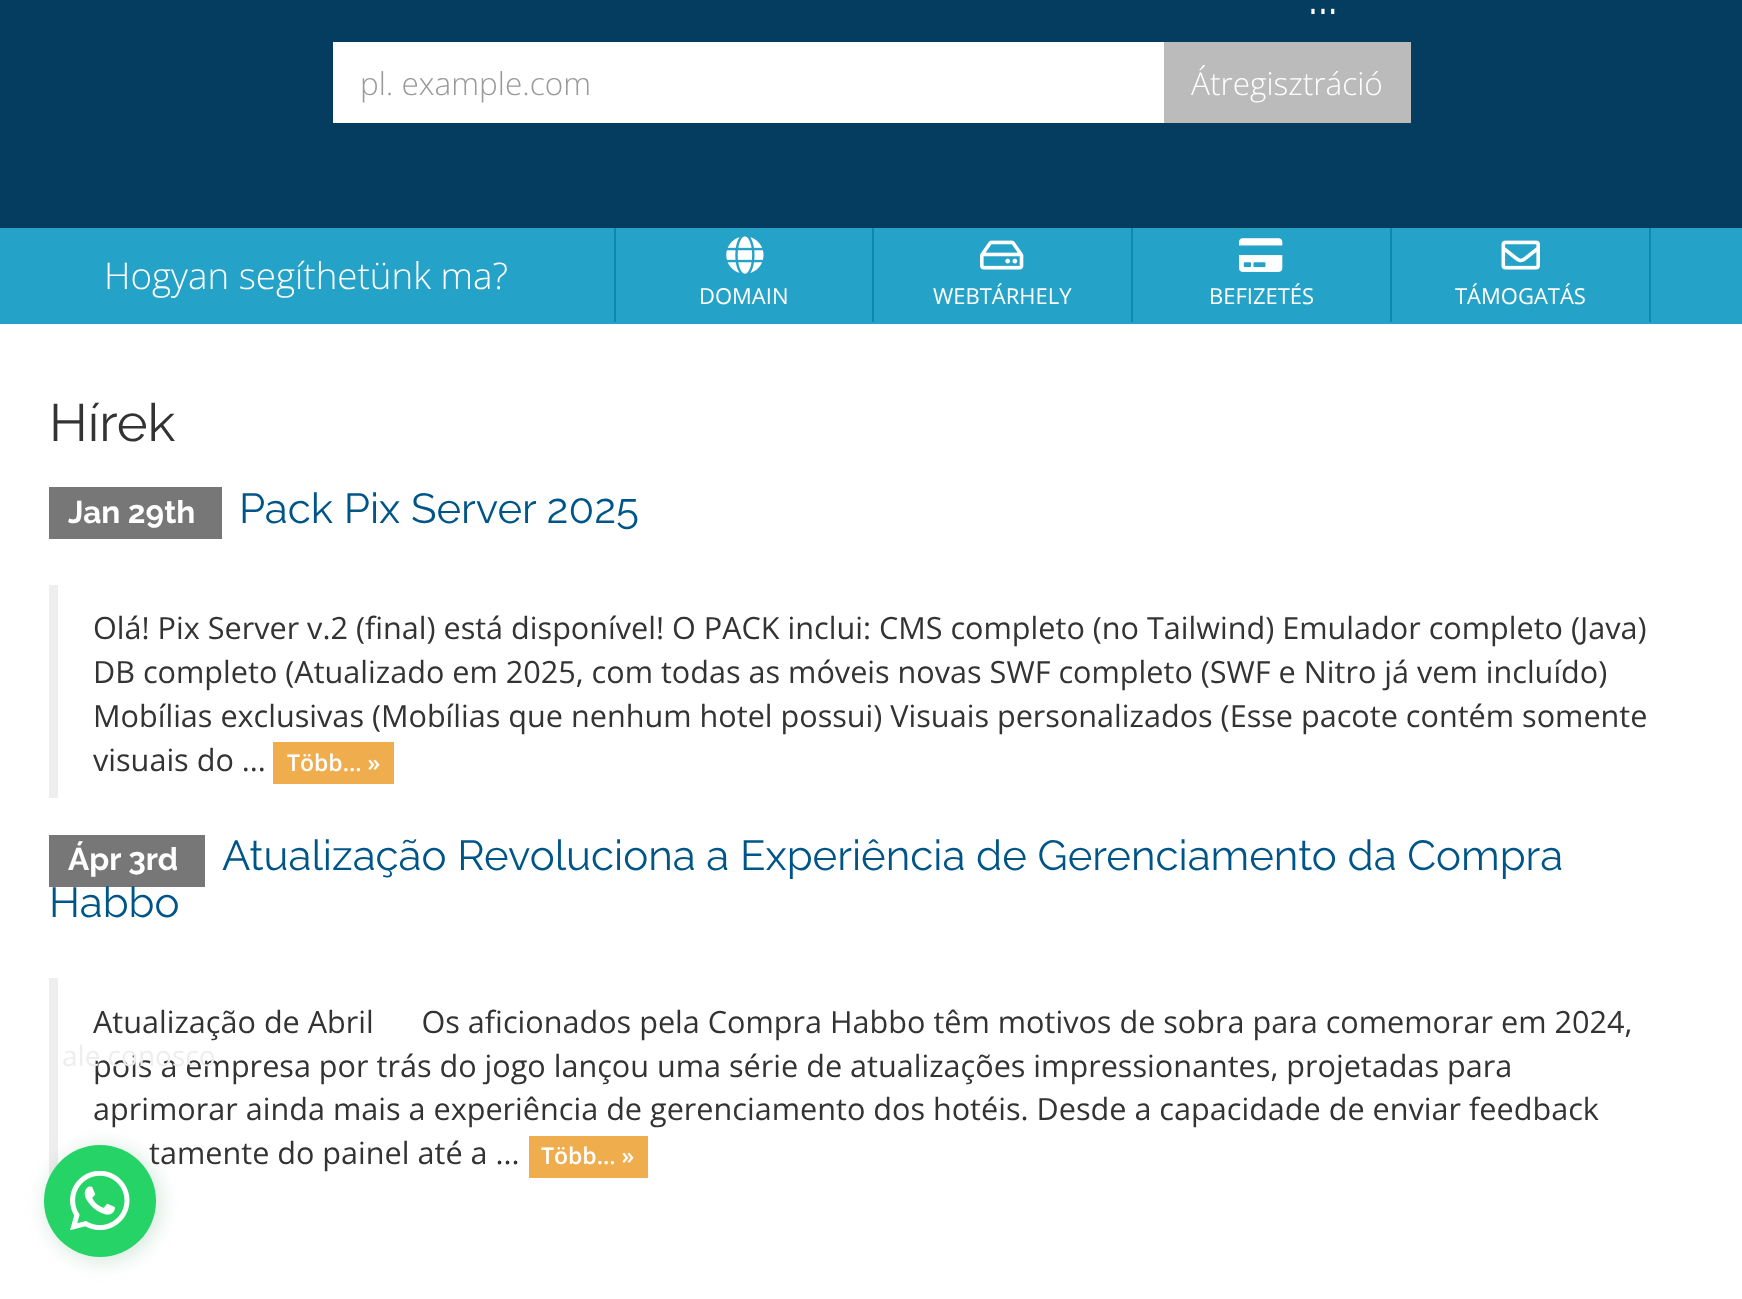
<svg xmlns="http://www.w3.org/2000/svg" width="1742" height="1299">
<style>
.a{font:52.5px Raleway;fill:#fff}
.b{font:300 31.5px Open Sans;fill:#999}
.c{font:300 31.5px Open Sans;fill:#fff}
.d{font:300 36.75px Open Sans;fill:#fff}
.e{font:22px Open Sans;fill:#fff}
.f{font:52.5px Raleway;fill:#333}
.g{font:bold 31.5px Raleway;fill:#fff}
.h{font:42px Raleway;fill:#058}
.i{font:30.62px Open Sans;fill:#333}
.j{font:600 23px Open Sans;fill:#fff}
.k{font:28px Open Sans;fill:#eee}
</style>
<rect width="100%" height="100%" fill="#043d5f"/>
<path fill="#fff" d="M333 42h831v81H333z"/>
<path fill="#bbb" d="M1164 42h247v81H1164z"/>
<path fill="#25a2c7" d="M0 228h1742v96H0z"/>
<path fill="#0e88b0" d="M872 228h2v94H872z"/>
<path fill="#0e88b0" d="M614 228h2v94H614z"/>
<image href="1.png" x="726" y="236" width="38" height="38"/>
<path fill="#0e88b0" d="M1131 228h2v94H1131z"/>
<image href="2.png" x="980" y="240" width="44" height="30"/>
<path fill="#0e88b0" d="M1390 228h2v94H1390z"/>
<image href="3.png" x="1239" y="238" width="44" height="34"/>
<path fill="#0e88b0" d="M1649 228h2v94H1649z"/>
<image href="4.png" x="1501" y="240" width="39" height="30"/>
<path fill="#fff" d="M0 324h1742v975H0z"/>
<path fill="#777" d="M49 487h173v52H49z"/>
<path fill="#eee" d="M49 585h9v213H49z"/>
<path fill="#f0ad4e" d="M273 742h121v42H273z"/>
<path fill="#777" d="M49 835h156v52H49z"/>
<path fill="#eee" d="M49 978h9v200H49z"/>
<path fill="#f0ad4e" d="M529 1136h119v42H529z"/>
<rect fill="#167c3c33" filter="blur(10.5px)" x="47" y="1148" width="112" height="112" rx="56"/>
<text class="a" x="1308" y="14">...</text>
<text class="b" x="360" y="95">pl. example.com</text>
<text class="c" x="1191" y="95">Átregisztráció</text>
<text class="d" x="104" y="289">Hogyan segíthetünk ma?</text>
<text class="e" x="699" y="304">DOMAIN</text>
<text class="e" x="933" y="304">WEBTÁRHELY</text>
<text class="e" x="1209" y="304">BEFIZETÉS</text>
<text class="e" x="1455" y="304">TÁMOGATÁS</text>
<text class="f" x="49" y="441">Hírek</text>
<text class="g" x="68" y="523">Jan 29th</text>
<text class="h" x="239" y="523">Pack Pix Server 2025</text>
<text class="i" x="93" y="639">Olá! Pix Server v.2 (final) está disponível! O PACK inclui: CMS completo (no Tailwind) Emulador completo (Java)</text>
<text class="i" x="93" y="683">DB completo (Atualizado em 2025, com todas as móveis novas SWF completo (SWF e Nitro já vem incluído)</text>
<text class="i" x="93" y="727">Mobílias exclusivas (Mobílias que nenhum hotel possui) Visuais personalizados (Esse pacote contém somente</text>
<text class="i" x="93" y="771">visuais do ...</text>
<text class="j" x="287" y="771">Több... »</text>
<text class="g" x="68" y="870">Ápr 3rd</text>
<text class="h" x="222" y="870">Atualização Revoluciona a Experiência de Gerenciamento da Compra</text>
<text class="h" x="49" y="917">Habbo</text>
<text class="i" xml:space="preserve" x="93" y="1033">Atualização de Abril      Os aficionados pela Compra Habbo têm motivos de sobra para comemorar em 2024,</text>
<text class="i" x="93" y="1077">pois a empresa por trás do jogo lançou uma série de atualizações impressionantes, projetadas para</text>
<text class="i" x="93" y="1120">aprimorar ainda mais a experiência de gerenciamento dos hotéis. Desde a capacidade de enviar feedback</text>
<text class="i" x="149" y="1164">tamente do painel até a ...</text>
<text class="j" x="541" y="1164">Több... »</text>
<circle fill="#25d366" cx="100" cy="1201" r="56"/>
<text class="k" x="62" y="1066">ale conosco</text>
<image href="5.png" x="70" y="1171" width="60" height="59"/>
</svg>
